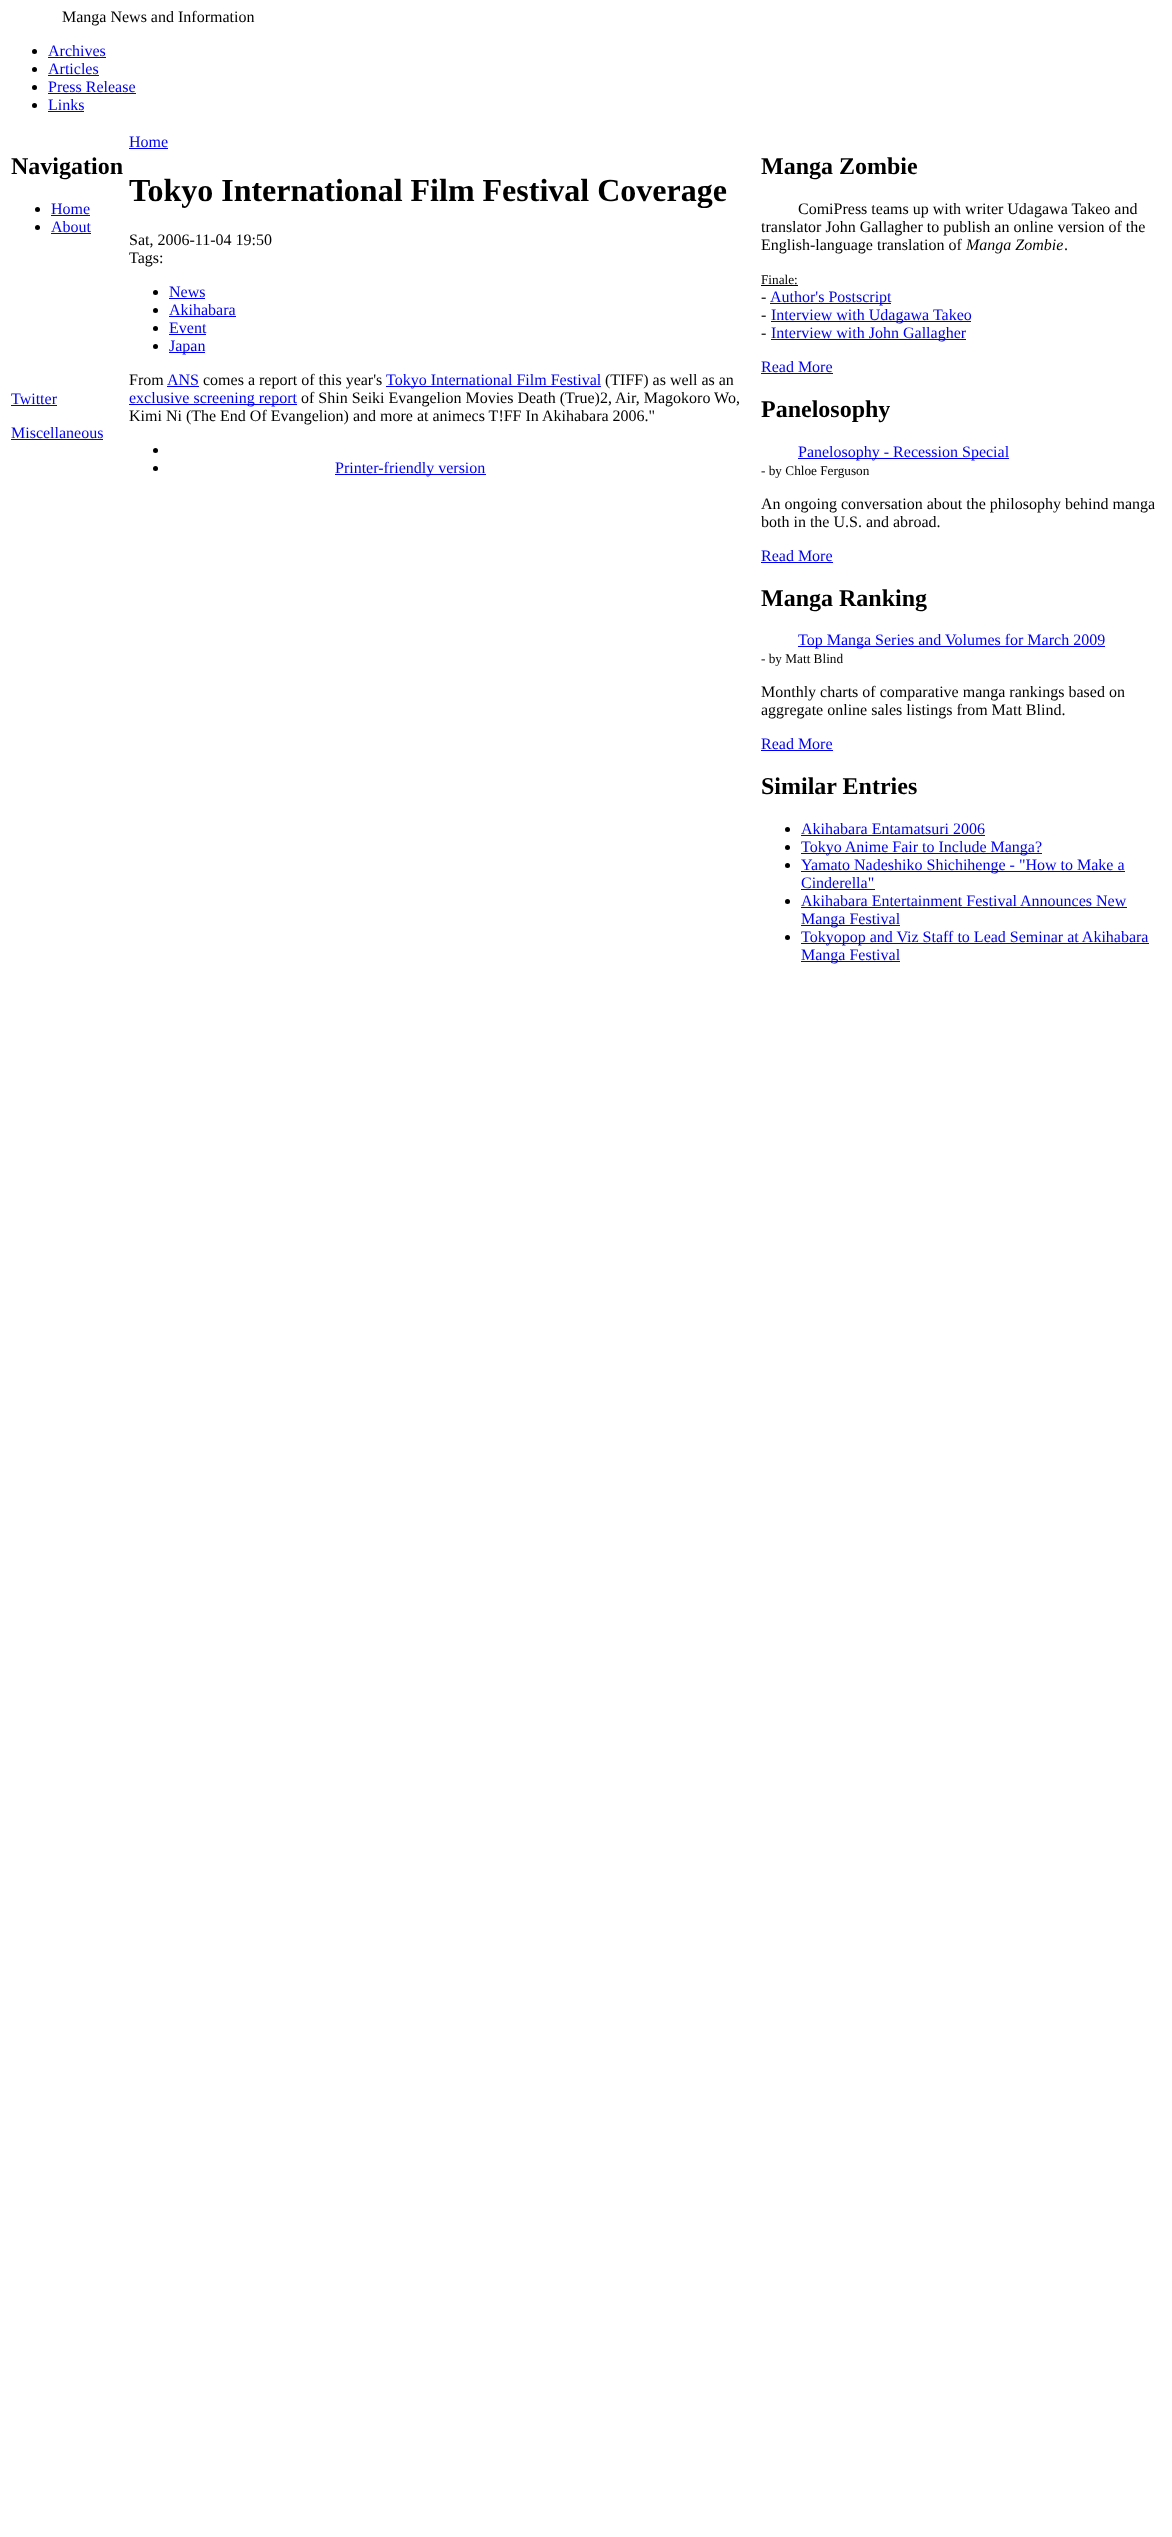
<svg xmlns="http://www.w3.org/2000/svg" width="1172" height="2537">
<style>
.a{font:16px Liberation Serif;fill:#000}
.b{font:16px Liberation Serif;fill:#00e}
.c{font:bold 24px Liberation Serif;fill:#000}
.d{font:bold 32px Liberation Serif;fill:#000}
.e{font:italic 16px Liberation Serif;fill:#000}
.f{font:13.25px Liberation Serif;fill:#000}
</style>
<rect width="100%" height="100%" fill="#fff"/>
<circle fill="#000" cx="34.5" cy="51.5" r="2.5"/>
<path fill="#00e" d="M48 57h58v1H48z"/>
<circle fill="#000" cx="34.5" cy="69.5" r="2.5"/>
<path fill="#00e" d="M48 75h51v1H48z"/>
<circle fill="#000" cx="34.5" cy="87.5" r="2.5"/>
<path fill="#00e" d="M48 93h88v1H48z"/>
<circle fill="#000" cx="34.5" cy="105.5" r="2.5"/>
<path fill="#00e" d="M48 111h36v1H48z"/>
<circle fill="#000" cx="37.5" cy="209.5" r="2.5"/>
<path fill="#00e" d="M51 215h39v1H51z"/>
<circle fill="#000" cx="37.5" cy="227.5" r="2.5"/>
<path fill="#00e" d="M51 233h40v1H51z"/>
<path fill="#00e" d="M11 405h46v1H11z"/>
<path fill="#00e" d="M11 439h92v1H11z"/>
<path fill="#00e" d="M129 148h39v1H129z"/>
<circle fill="#000" cx="155.5" cy="292.5" r="2.5"/>
<path fill="#00e" d="M169 298h36v1H169z"/>
<circle fill="#000" cx="155.5" cy="310.5" r="2.5"/>
<path fill="#00e" d="M169 316h67v1H169z"/>
<circle fill="#000" cx="155.5" cy="328.5" r="2.5"/>
<path fill="#00e" d="M169 334h37v1H169z"/>
<circle fill="#000" cx="155.5" cy="346.5" r="2.5"/>
<path fill="#00e" d="M169 352h36v1H169z"/>
<path fill="#00e" d="M167 386h32v1H167z"/>
<path fill="#00e" d="M386 386h215v1H386z"/>
<path fill="#00e" d="M129 404h168v1H129z"/>
<circle fill="#000" cx="155.5" cy="450.5" r="2.5"/>
<circle fill="#000" cx="155.5" cy="468.5" r="2.5"/>
<path fill="#00e" d="M335 474h151v1H335z"/>
<path fill="#000" d="M761 285h37v1H761z"/>
<path fill="#00e" d="M770 303h121v1H770z"/>
<path fill="#00e" d="M771 321h200v1H771z"/>
<path fill="#00e" d="M771 339h195v1H771z"/>
<path fill="#00e" d="M761 373h72v1H761z"/>
<path fill="#00e" d="M798 458h211v1H798z"/>
<path fill="#00e" d="M761 562h72v1H761z"/>
<path fill="#00e" d="M798 646h307v1H798z"/>
<path fill="#00e" d="M761 750h72v1H761z"/>
<circle fill="#000" cx="787.5" cy="829.5" r="2.5"/>
<path fill="#00e" d="M801 835h184v1H801z"/>
<circle fill="#000" cx="787.5" cy="847.5" r="2.5"/>
<path fill="#00e" d="M801 853h241v1H801z"/>
<circle fill="#000" cx="787.5" cy="865.5" r="2.5"/>
<path fill="#00e" d="M801 871h324v1H801z"/>
<path fill="#00e" d="M801 889h74v1H801z"/>
<circle fill="#000" cx="787.5" cy="901.5" r="2.5"/>
<path fill="#00e" d="M801 907h326v1H801z"/>
<path fill="#00e" d="M801 925h99v1H801z"/>
<circle fill="#000" cx="787.5" cy="937.5" r="2.5"/>
<path fill="#00e" d="M801 943h348v1H801z"/>
<path fill="#00e" d="M801 961h99v1H801z"/>
<text class="a" x="62" y="22">Manga News and Information</text>
<text class="b" x="48" y="56">Archives</text>
<text class="b" x="48" y="74">Articles</text>
<text class="b" x="48" y="92">Press Release</text>
<text class="b" x="48" y="110">Links</text>
<text class="c" x="11" y="174">Navigation</text>
<text class="b" x="51" y="214">Home</text>
<text class="b" x="51" y="232">About</text>
<text class="b" x="11" y="404">Twitter</text>
<text class="b" x="11" y="438">Miscellaneous</text>
<text class="b" x="129" y="147">Home</text>
<text class="d" x="129" y="201">Tokyo International Film Festival Coverage</text>
<text class="a" x="129" y="245">Sat, 2006-11-04 19:50</text>
<text class="a" x="129" y="263">Tags:</text>
<text class="b" x="169" y="297">News</text>
<text class="b" x="169" y="315">Akihabara</text>
<text class="b" x="169" y="333">Event</text>
<text class="b" x="169" y="351">Japan</text>
<text class="a" x="129" y="385">From</text>
<text class="b" x="167" y="385">ANS</text>
<text class="a" x="203" y="385">comes a report of this year's</text>
<text class="b" x="386" y="385">Tokyo International Film Festival</text>
<text class="a" x="605" y="385">(TIFF) as well as an</text>
<text class="b" x="129" y="403">exclusive screening report</text>
<text class="a" x="301" y="403">of Shin Seiki Evangelion Movies Death (True)2, Air, Magokoro Wo,</text>
<text class="a" x="129" y="421">Kimi Ni (The End Of Evangelion) and more at animecs T!FF In Akihabara 2006."</text>
<text class="b" x="335" y="473">Printer-friendly version</text>
<text class="c" x="761" y="174">Manga Zombie</text>
<text class="a" x="798" y="214">ComiPress teams up with writer Udagawa Takeo and</text>
<text class="a" x="761" y="232">translator John Gallagher to publish an online version of the</text>
<text class="a" x="761" y="250">English-language translation of</text>
<text class="e" x="966" y="250">Manga Zombie</text>
<text class="a" x="1064" y="250">.</text>
<text class="f" x="761" y="284">Finale:</text>
<text class="a" x="761" y="302">-</text>
<text class="b" x="770" y="302">Author's Postscript</text>
<text class="a" x="761" y="320">-</text>
<text class="b" x="771" y="320">Interview with Udagawa Takeo</text>
<text class="a" x="761" y="338">-</text>
<text class="b" x="771" y="338">Interview with John Gallagher</text>
<text class="b" x="761" y="372">Read More</text>
<text class="c" x="761" y="417">Panelosophy</text>
<text class="b" x="798" y="457">Panelosophy - Recession Special</text>
<text class="f" x="761" y="475">- by Chloe Ferguson</text>
<text class="a" x="761" y="509">An ongoing conversation about the philosophy behind manga</text>
<text class="a" x="761" y="527">both in the U.S. and abroad.</text>
<text class="b" x="761" y="561">Read More</text>
<text class="c" x="761" y="606">Manga Ranking</text>
<text class="b" x="798" y="645">Top Manga Series and Volumes for March 2009</text>
<text class="f" x="761" y="663">- by Matt Blind</text>
<text class="a" x="761" y="697">Monthly charts of comparative manga rankings based on</text>
<text class="a" x="761" y="715">aggregate online sales listings from Matt Blind.</text>
<text class="b" x="761" y="749">Read More</text>
<text class="c" x="761" y="794">Similar Entries</text>
<text class="b" x="801" y="834">Akihabara Entamatsuri 2006</text>
<text class="b" x="801" y="852">Tokyo Anime Fair to Include Manga?</text>
<text class="b" x="801" y="870">Yamato Nadeshiko Shichihenge - "How to Make a</text>
<text class="b" x="801" y="888">Cinderella"</text>
<text class="b" x="801" y="906">Akihabara Entertainment Festival Announces New</text>
<text class="b" x="801" y="924">Manga Festival</text>
<text class="b" x="801" y="942">Tokyopop and Viz Staff to Lead Seminar at Akihabara</text>
<text class="b" x="801" y="960">Manga Festival</text>
</svg>
